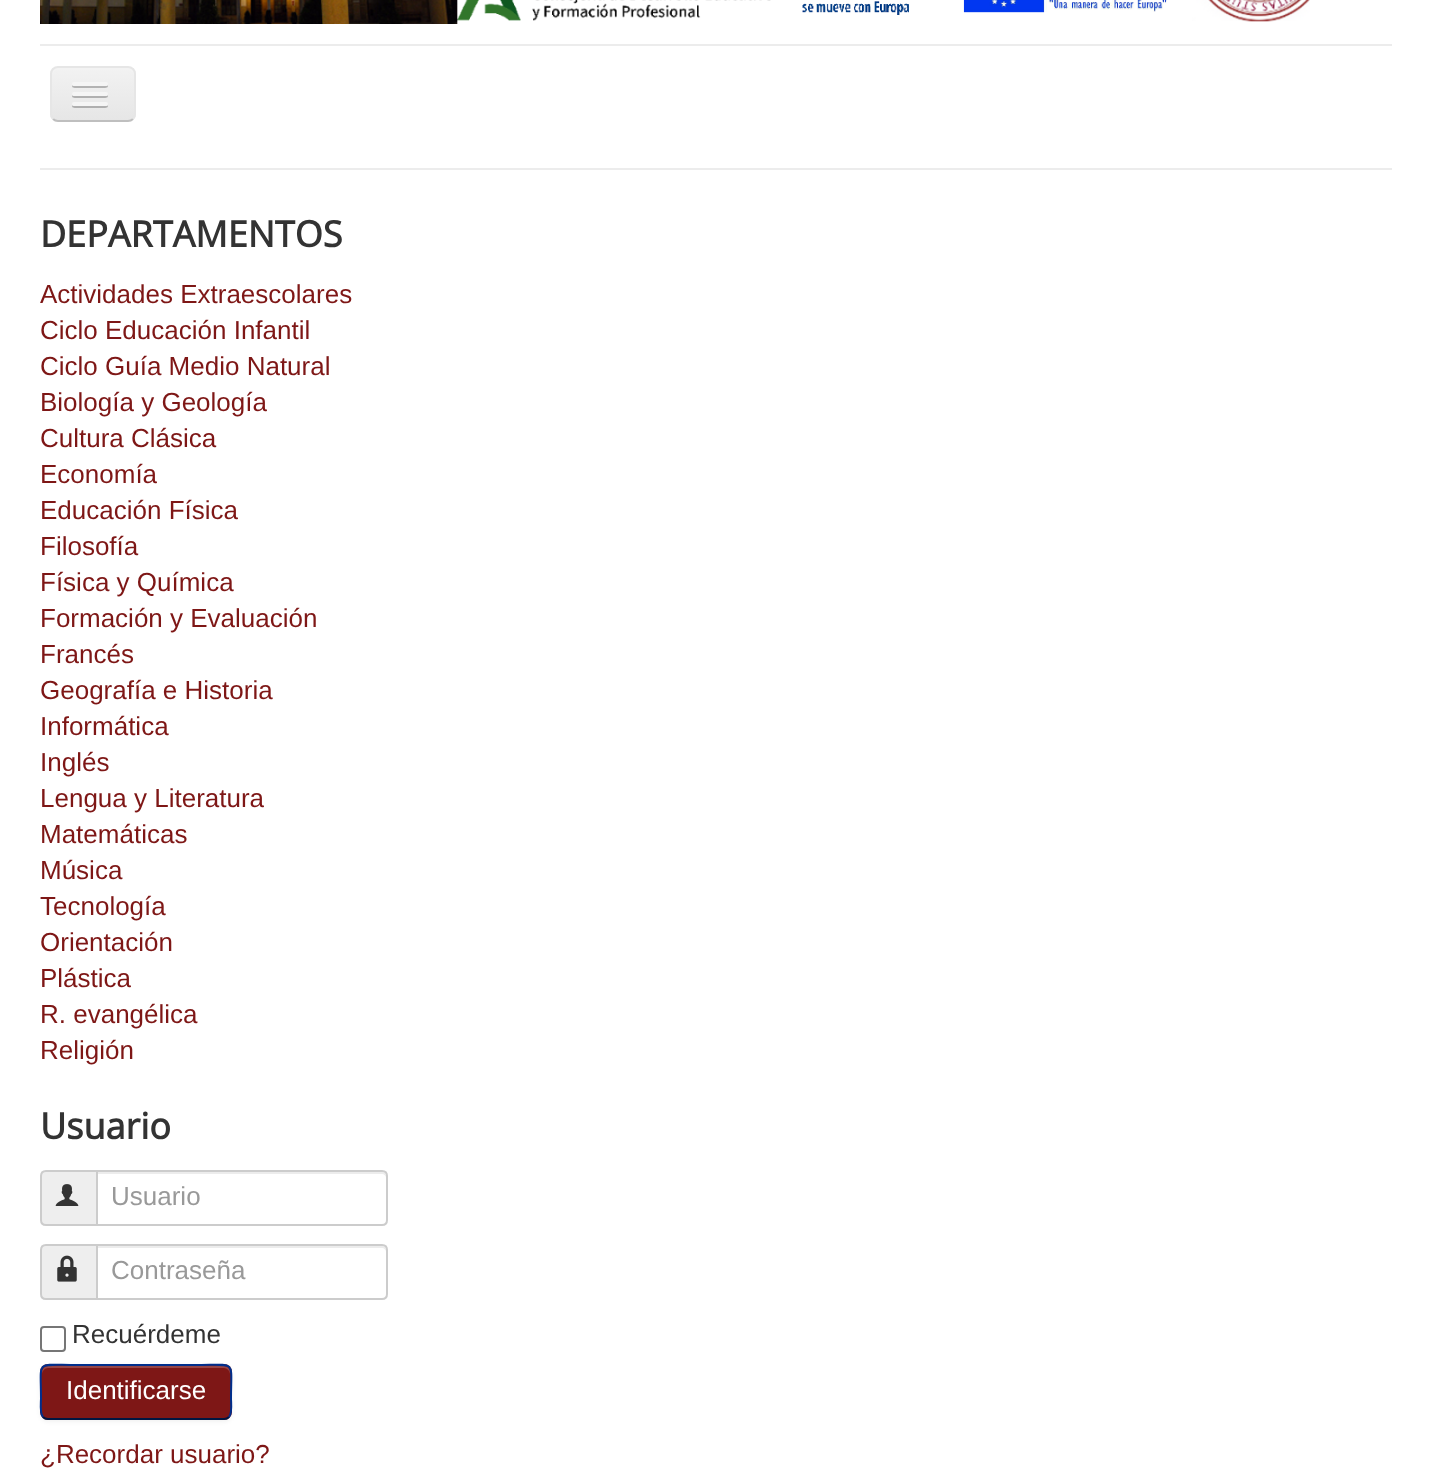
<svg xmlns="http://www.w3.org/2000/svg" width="1432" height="1477">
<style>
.a{font:bold 36px Open Sans;fill:#333}
.b{font:26px Liberation Sans;fill:#7e1716}
.c{font:26px Liberation Sans;fill:#999}
.d{font:26px Liberation Sans;fill:#333}
.e{font:26px Liberation Sans;fill:#fff}
</style>
<defs>
<clipPath id="clip1"><rect x="50" y="66" width="86" height="56" rx="8"/></clipPath>
<linearGradient id="g1" gradientUnits="userSpaceOnUse" x1="93" y1="68" x2="93" y2="120"><stop offset="0" stop-color="#f2f2f2"/><stop offset="1" stop-color="#e6e6e6"/></linearGradient>
</defs>
<rect width="100%" height="100%" fill="#fff"/>
<image href="1.png" x="40" y="0" width="1270" height="24"/>
<path fill="#ececec" d="M40 44h1352v2H40z"/>
<path fill="#ececec" d="M40 168h1352v2H40z"/>
<g clip-path="url(#clip1)">
<path fill="url(#g1)" d="M50 68h86v52H50z"/>
</g>
<path fill="#f3f3f3" d="M58 70h70c3 0 6 3 6 6c0-11-9-8-18-8h-46c-9 0-18-3-18 8c0-3 3-6 6-6z"/>
<path fill="none" stroke="#bfbfbf" stroke-width="2" d="M133 119c-1.5 1.5-3 2-5 2h-70c-2 0-3.5-.5-5-2"/>
<path fill="none" stroke="#e6e6e6" stroke-width="2" d="M53 119c-1.5-1.5-2-3-2-5v-40c0-2 .5-3.5 2-5c1.5-1.5 3-2 5-2h70c2 0 3.5 .5 5 2c1.5 1.5 2 3 2 5v40c0 2-.5 3.5-2 5"/>
<path fill="#b3b3b3" d="M72.5 85c-2.5 4 6.5 3 7 3h21c.5 0 9.5 1 7-3c0 .5-1 1-1.5 1h-32c-.5 0-1.5-.5-1.5-1z"/>
<rect fill="#f5f5f5" x="72" y="82" width="36" height="4" rx="2"/>
<path fill="#b0b0b0" d="M72.5 95c-2.5 4 6.5 3 7 3h21c.5 0 9.5 1 7-3c0 .5-1 1-1.5 1h-32c-.5 0-1.5-.5-1.5-1z"/>
<rect fill="#f5f5f5" x="72" y="92" width="36" height="4" rx="2"/>
<path fill="#afafaf" d="M72.5 105c-2.5 4 6.5 3 7 3h21c.5 0 9.5 1 7-3c0 .5-1 1-1.5 1h-32c-.5 0-1.5-.5-1.5-1z"/>
<rect fill="#f5f5f5" x="72" y="102" width="36" height="4" rx="2"/>
<path fill="#eee" stroke="#ccc" stroke-width="2" d="M46 1171h51v54h-51c-3 0-5-2-5-5v-44c0-3 2-5 5-5z"/>
<image href="2.png" x="55" y="1184" width="24" height="22"/>
<path fill="#fff" d="M96 1170h286c3.5 0 6 2.5 6 6v44c0 3.5-2.5 6-6 6h-286z"/>
<path fill="#ececec" d="M98 1174h284c2 0 4 2 4 4c0-3 0-6-4-6h-284z"/>
<path fill="none" stroke="#ccc" stroke-width="2" d="M97 1171h285c3 0 5 2 5 5v44c0 3-2 5-5 5h-285z"/>
<path fill="#eee" stroke="#ccc" stroke-width="2" d="M46 1245h51v54h-51c-3 0-5-2-5-5v-44c0-3 2-5 5-5z"/>
<image href="3.png" x="57" y="1255" width="20" height="27"/>
<path fill="#fff" d="M96 1244h286c3.5 0 6 2.5 6 6v44c0 3.5-2.5 6-6 6h-286z"/>
<path fill="#ececec" d="M98 1248h284c2 0 4 2 4 4c0-3 0-6-4-6h-284z"/>
<path fill="none" stroke="#ccc" stroke-width="2" d="M97 1245h285c3 0 5 2 5 5v44c0 3-2 5-5 5h-285z"/>
<rect fill="none" stroke="#767676" stroke-width="2" x="41" y="1327" width="24" height="24" rx="3"/>
<rect fill="#0000000d" filter="blur(2px)" x="40" y="1366" width="192" height="56" rx="8"/>
<rect fill="#7e1716" x="40" y="1364" width="192" height="56" rx="8"/>
<path fill="#984545" d="M48 1368h176c3 0 6 3 6 6v-2c0-3-3-6-6-6h-176c-3 0-6 3-6 6v2c0-3 3-6 6-6z"/>
<path fill="none" stroke="#001641" stroke-width="2" d="M229 1417c-1.5 1.5-3 2-5 2h-176c-2 0-3.5-.5-5-2"/>
<path fill="none" stroke="#002f8d" stroke-width="2" d="M43 1417c-3.5-4-2-14-2-18.5c0-40-6.5-33.5 36.5-33.5h117c43 0 36.5-6.5 36.5 33.5c0 4.5 1.5 14.5-2 18.5"/>
<text class="a" x="40" y="247">DEPARTAMENTOS</text>
<text class="b" x="40" y="303">Actividades Extraescolares</text>
<text class="b" x="40" y="339">Ciclo Educación Infantil</text>
<text class="b" x="40" y="375">Ciclo Guía Medio Natural</text>
<text class="b" x="40" y="411">Biología y Geología</text>
<text class="b" x="40" y="447">Cultura Clásica</text>
<text class="b" x="40" y="483">Economía</text>
<text class="b" x="40" y="519">Educación Física</text>
<text class="b" x="40" y="555">Filosofía</text>
<text class="b" x="40" y="591">Física y Química</text>
<text class="b" x="40" y="627">Formación y Evaluación</text>
<text class="b" x="40" y="663">Francés</text>
<text class="b" x="40" y="699">Geografía e Historia</text>
<text class="b" x="40" y="735">Informática</text>
<text class="b" x="40" y="771">Inglés</text>
<text class="b" x="40" y="807">Lengua y Literatura</text>
<text class="b" x="40" y="843">Matemáticas</text>
<text class="b" x="40" y="879">Música</text>
<text class="b" x="40" y="915">Tecnología</text>
<text class="b" x="40" y="951">Orientación</text>
<text class="b" x="40" y="987">Plástica</text>
<text class="b" x="40" y="1023">R. evangélica</text>
<text class="b" x="40" y="1059">Religión</text>
<text class="a" x="40" y="1139">Usuario</text>
<text class="c" x="111" y="1205">Usuario</text>
<text class="c" x="111" y="1279">Contraseña</text>
<text class="d" x="72" y="1343">Recuérdeme</text>
<text class="e" x="66" y="1399">Identificarse</text>
<text class="b" x="40" y="1463">¿Recordar usuario?</text>
</svg>
